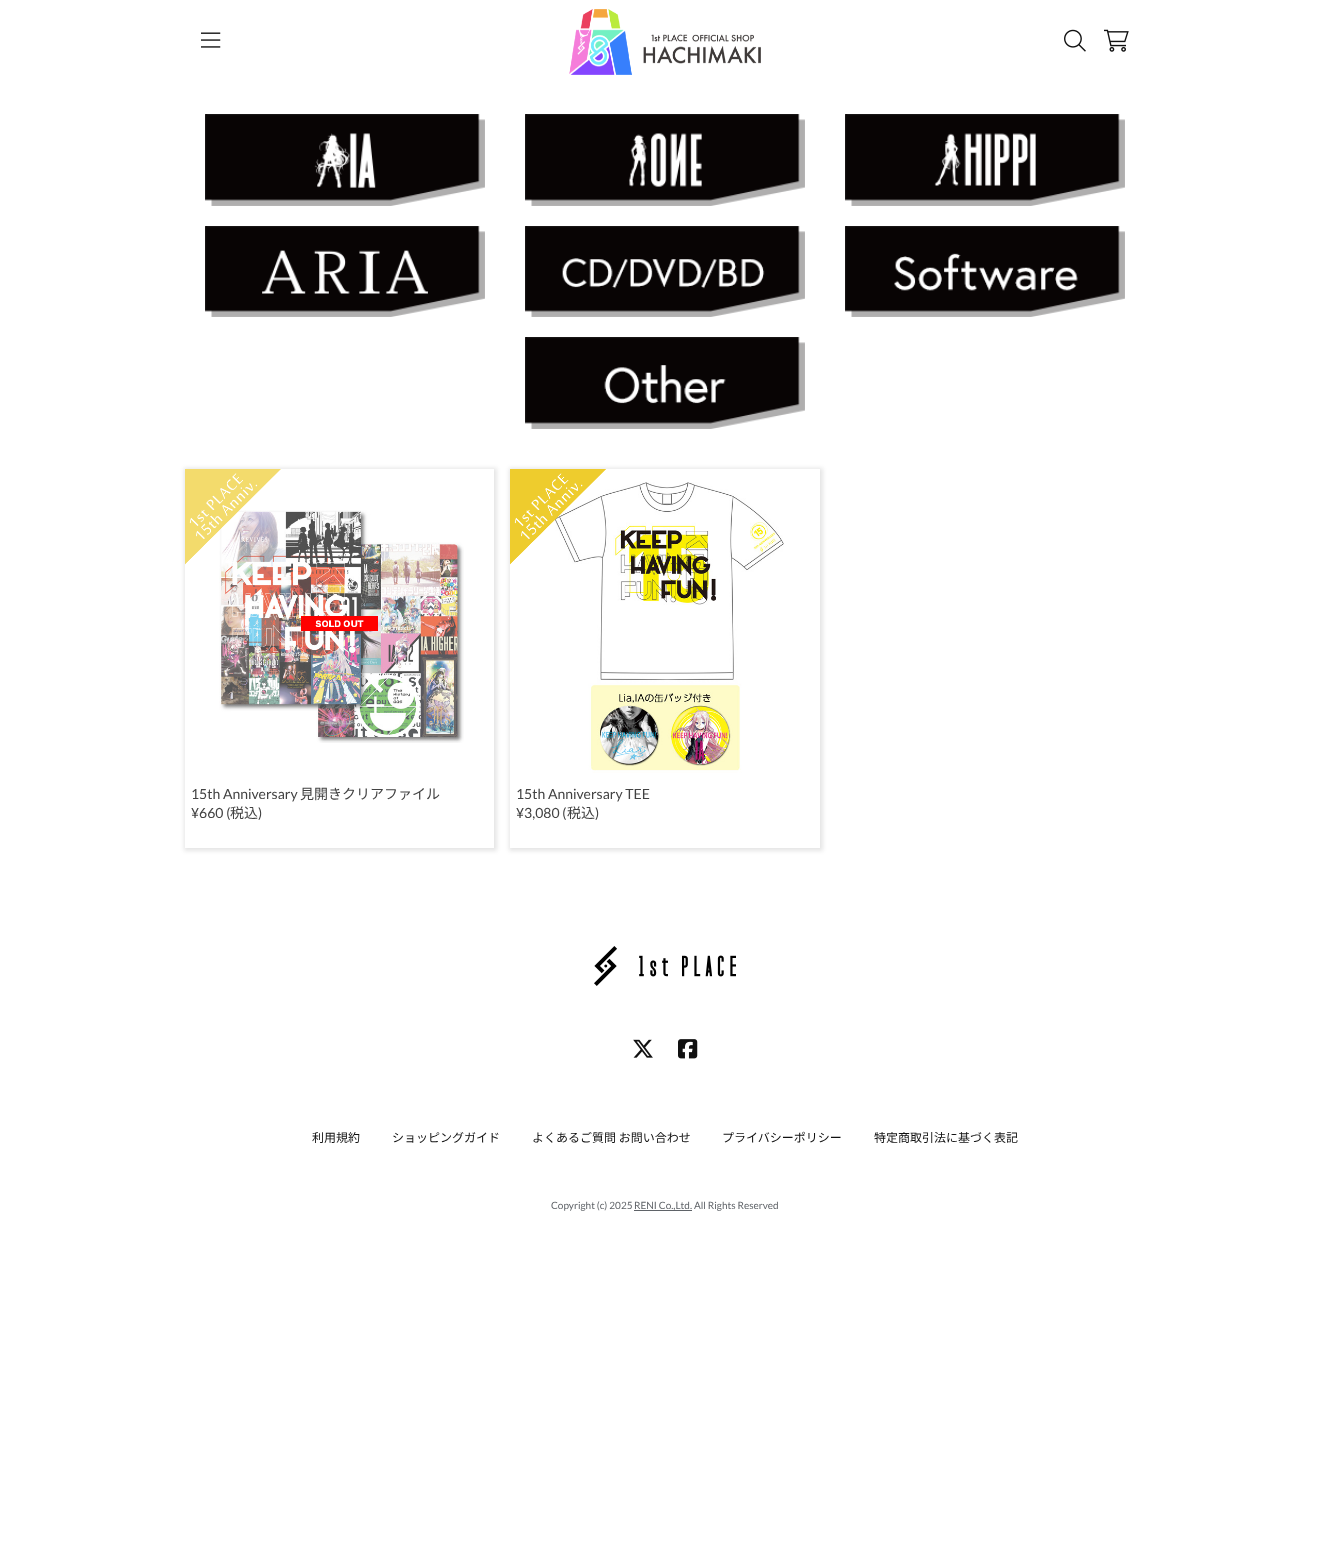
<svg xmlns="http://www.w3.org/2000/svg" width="1330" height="1565">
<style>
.a{font:14px Lato;fill:#424242}
.b{font:14px Noto Sans JP;fill:#424242}
.c{font:12px Noto Sans JP;fill:#111}
.d{font:10px Lato;fill:#5f6368}
</style>
<defs>
<clipPath id="clip1"><path d="M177 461h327v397h-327zm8 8h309v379h-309z" clip-rule="evenodd"/></clipPath>
<clipPath id="clip2"><path d="M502 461h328v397h-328zm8 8h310v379h-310z" clip-rule="evenodd"/></clipPath>
</defs>
<rect width="100%" height="100%" fill="#fff"/>
<image href="1.png" x="201" y="32" width="20" height="16"/>
<image href="2.png" x="569" y="9" width="192" height="66"/>
<image href="3.png" x="1064" y="29" width="22" height="23"/>
<image href="4.png" x="1104" y="29" width="25" height="23"/>
<image href="5.png" x="205" y="114" width="280" height="92"/>
<image href="6.png" x="525" y="114" width="280" height="92"/>
<image href="7.png" x="845" y="114" width="280" height="92"/>
<image href="8.png" x="205" y="226" width="280" height="91"/>
<image href="9.png" x="525" y="226" width="280" height="91"/>
<image href="10.png" x="845" y="226" width="280" height="91"/>
<image href="11.png" x="525" y="337" width="280" height="92"/>
<g clip-path="url(#clip1)">
<path fill="#0000001a" filter="blur(2px)" d="M184 468h313v383H184z"/>
</g>
<image href="14.png" x="219" y="510" width="245" height="233"/>
<image href="12.png" x="185" y="469" width="96" height="96"/>
<image href="13.png" x="185" y="469" width="278" height="273"/>
<g clip-path="url(#clip2)">
<path fill="#0000001a" filter="blur(2px)" d="M509 468h314v383H509z"/>
</g>
<image href="16.png" x="554" y="482" width="230" height="291"/>
<image href="15.png" x="510" y="469" width="96" height="96"/>
<image href="17.png" x="594" y="946" width="142" height="40"/>
<image href="18.png" x="633" y="1039" width="20" height="19"/>
<image href="19.png" x="678" y="1039" width="20" height="20"/>
<path fill="#5f6368" d="M634 1210h58v1H634z"/>
<text class="a" x="191" y="799">15th Anniversary</text>
<text class="b" x="300" y="799">見開きクリアファイル</text>
<text class="a" x="191" y="818">¥660 (</text>
<text class="b" x="230" y="818">税込</text>
<text class="a" x="258" y="818">)</text>
<text class="a" x="516" y="799">15th Anniversary TEE</text>
<text class="a" x="516" y="818">¥3,080 (</text>
<text class="b" x="567" y="818">税込</text>
<text class="a" x="595" y="818">)</text>
<text class="c" x="312" y="1142">利用規約</text>
<text class="c" x="392" y="1142">ショッピングガイド</text>
<text class="c" x="532" y="1142">よくあるご質問 お問い合わせ</text>
<text class="c" x="722" y="1142">プライバシーポリシー</text>
<text class="c" x="874" y="1142">特定商取引法に基づく表記</text>
<text class="d" x="551" y="1209">Copyright (c) 2025</text>
<text class="d" x="634" y="1209">RENI Co.,Ltd.</text>
<text class="d" x="694" y="1209">All Rights Reserved</text>
</svg>
